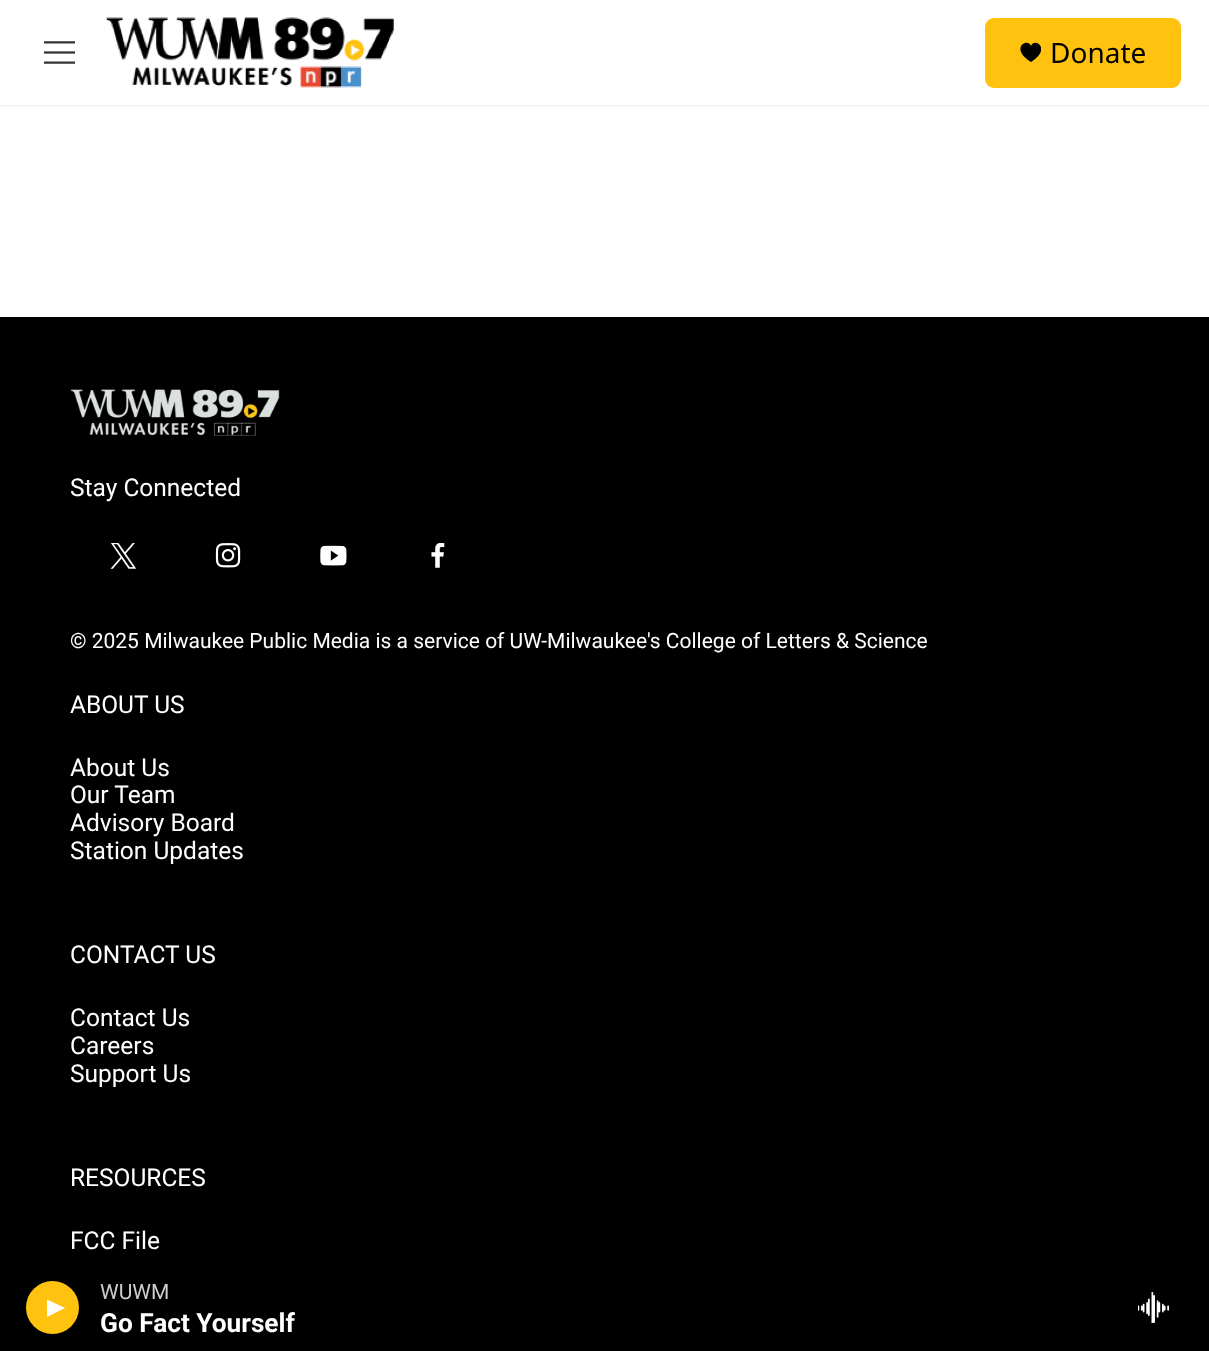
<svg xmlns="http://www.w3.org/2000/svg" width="1209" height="1351">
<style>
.a{font:28px Noto Sans;fill:#000}
.b{font:21px Roboto;fill:#ccc}
.c{font:bold 26.25px Roboto;fill:#fff}
.d{font:24.5px Roboto;fill:#fff}
.e{font:21px Roboto;fill:#fff}
</style>
<defs>
<clipPath id="clip1"><path d="M1020 42h21v21H1020z"/></clipPath>
</defs>
<rect width="100%" height="100%" fill="#fff"/>
<path fill="#f5f5f5" d="M0 105h1209v2H0z"/>
<image href="1.png" x="44" y="41" width="31" height="23"/>
<image href="2.png" x="106" y="17" width="288" height="71"/>
<rect fill="#ffc20e" x="985" y="18" width="196" height="70" rx="9"/>
<g clip-path="url(#clip1)">
<path fill="#000" d="M1031 46c-3.5-9-22 2.5 0 16c21.5-13.5 3-25 0-16z"/>
</g>
<path fill="#000" d="M0 317h1209v1034H0z"/>
<circle fill="#ffc20e" cx="52.5" cy="1307.5" r="26.5"/>
<path fill="#fff" d="M47 1299.5l18 8.5l-18 9z"/>
<image href="3.png" x="1138" y="1292" width="31" height="31"/>
<image href="4.png" x="70" y="389" width="210" height="47"/>
<image href="5.png" x="110" y="543" width="27" height="26"/>
<image href="6.png" x="215" y="543" width="26" height="25"/>
<image href="7.png" x="320" y="545" width="27" height="21"/>
<image href="8.png" x="431" y="543" width="14" height="25"/>
<text class="a" x="1050" y="63">Donate</text>
<text class="b" x="100" y="1299">WUWM</text>
<text class="c" x="100" y="1332">Go Fact Yourself</text>
<text class="d" x="70" y="496">Stay Connected</text>
<text class="e" x="70" y="648">© 2025 Milwaukee Public Media is a service of UW-Milwaukee's College of Letters &amp; Science</text>
<text class="d" x="70" y="713">ABOUT US</text>
<text class="d" x="70" y="776">About Us</text>
<text class="d" x="70" y="803">Our Team</text>
<text class="d" x="70" y="831">Advisory Board</text>
<text class="d" x="70" y="859">Station Updates</text>
<text class="d" x="70" y="963">CONTACT US</text>
<text class="d" x="70" y="1026">Contact Us</text>
<text class="d" x="70" y="1054">Careers</text>
<text class="d" x="70" y="1082">Support Us</text>
<text class="d" x="70" y="1186">RESOURCES</text>
<text class="d" x="70" y="1249">FCC File</text>
</svg>
